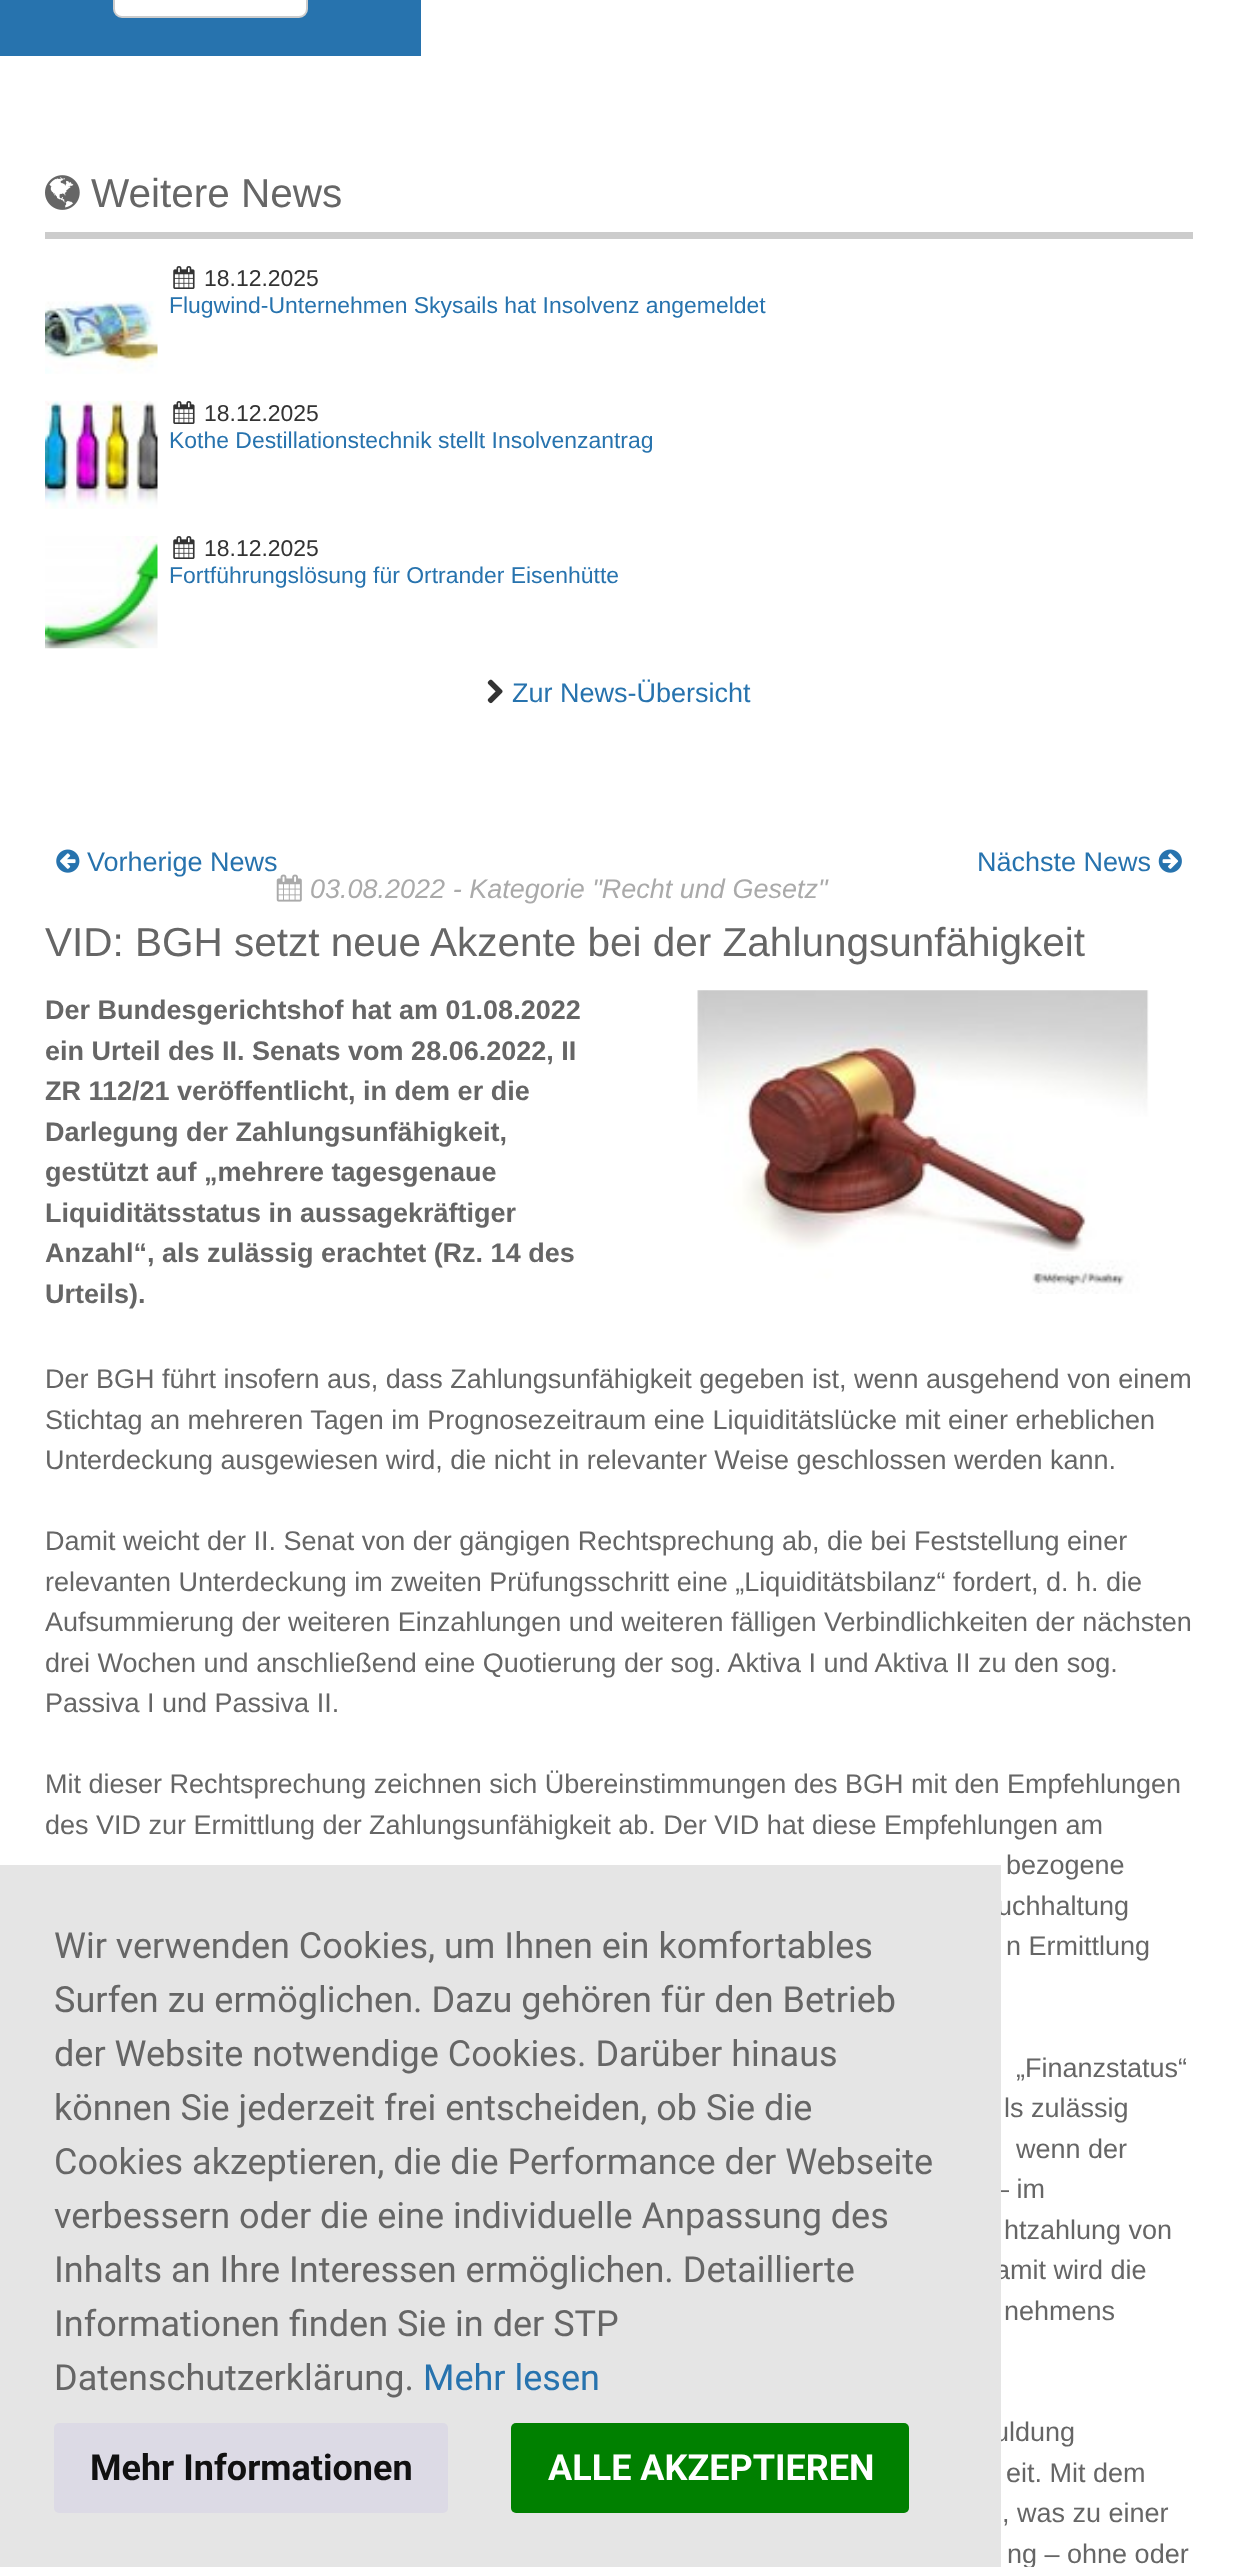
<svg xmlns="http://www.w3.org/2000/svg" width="1237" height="2567">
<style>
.a{font:40.5px Liberation Sans;fill:#666}
.b{font:22.95px Liberation Sans;fill:#333}
.c{font:22.95px Liberation Sans;fill:#2773ae}
.d{font:27px Liberation Sans;fill:#2773ae}
.e{font:italic 27px Liberation Sans;fill:#aaa}
.f{font:bold 27px Liberation Sans;fill:#666}
.g{font:27px Liberation Sans;fill:#666}
.h{font:36px Roboto;fill:#666}
.i{font:36px Roboto;fill:#2773ae}
.j{font:bold 36px Roboto;fill:#111}
.k{font:bold 36px Roboto;fill:#fff}
</style>
<rect width="100%" height="100%" fill="#fff"/>
<path fill="#2773ae" d="M0 0h421v56H0z"/>
<rect fill="#fff" stroke="#ccc" stroke-width="2" x="114" y="-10" width="193" height="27" rx="8"/>
<path fill="#ccc" d="M45 232h1148v7H45z"/>
<image href="1.png" x="45" y="175" width="35" height="35"/>
<image href="2.png" x="173" y="266" width="22" height="23"/>
<image href="3.png" x="45" y="301" width="113" height="73"/>
<image href="4.png" x="45" y="400" width="113" height="109"/>
<image href="2.png" x="173" y="401" width="22" height="23"/>
<image href="5.png" x="45" y="536" width="113" height="113"/>
<image href="2.png" x="173" y="536" width="22" height="23"/>
<image href="6.png" x="487" y="679" width="16" height="25"/>
<image href="7.png" x="56" y="849" width="24" height="24"/>
<image href="8.png" x="1158" y="849" width="24" height="24"/>
<image href="10.png" x="697" y="990" width="452" height="304"/>
<text class="a" x="91" y="207">Weitere News</text>
<text class="b" x="204" y="286">18.12.2025</text>
<text class="c" x="169" y="313">Flugwind-Unternehmen Skysails hat Insolvenz angemeldet</text>
<text class="b" x="204" y="421">18.12.2025</text>
<text class="c" x="169" y="448">Kothe Destillationstechnik stellt Insolvenzantrag</text>
<text class="b" x="204" y="556">18.12.2025</text>
<text class="c" x="169" y="583">Fortführungslösung für Ortrander Eisenhütte</text>
<text class="d" x="512" y="702">Zur News-Übersicht</text>
<text class="d" x="87" y="871">Vorherige News</text>
<text class="d" x="977" y="871">Nächste News</text>
<image href="9.png" x="276" y="874" width="26" height="28"/>
<text class="e" x="310" y="898">03.08.2022 - Kategorie "Recht und Gesetz"</text>
<text class="a" x="45" y="956">VID: BGH setzt neue Akzente bei der Zahlungsunfähigkeit</text>
<text class="f" x="45" y="1019">Der Bundesgerichtshof hat am 01.08.2022</text>
<text class="f" x="45" y="1060">ein Urteil des II. Senats vom 28.06.2022, II</text>
<text class="f" x="45" y="1100">ZR 112/21 veröffentlicht, in dem er die</text>
<text class="f" x="45" y="1141">Darlegung der Zahlungsunfähigkeit,</text>
<text class="f" x="45" y="1181">gestützt auf „mehrere tagesgenaue</text>
<text class="f" x="45" y="1222">Liquiditätsstatus in aussagekräftiger</text>
<text class="f" x="45" y="1262">Anzahl“, als zulässig erachtet (Rz. 14 des</text>
<text class="f" x="45" y="1303">Urteils).</text>
<text class="g" x="45" y="1388">Der BGH führt insofern aus, dass Zahlungsunfähigkeit gegeben ist, wenn ausgehend von einem</text>
<text class="g" x="45" y="1429">Stichtag an mehreren Tagen im Prognosezeitraum eine Liquiditätslücke mit einer erheblichen</text>
<text class="g" x="45" y="1469">Unterdeckung ausgewiesen wird, die nicht in relevanter Weise geschlossen werden kann.</text>
<text class="g" x="45" y="1550">Damit weicht der II. Senat von der gängigen Rechtsprechung ab, die bei Feststellung einer</text>
<text class="g" x="45" y="1591">relevanten Unterdeckung im zweiten Prüfungsschritt eine „Liquiditätsbilanz“ fordert, d. h. die</text>
<text class="g" x="45" y="1631">Aufsummierung der weiteren Einzahlungen und weiteren fälligen Verbindlichkeiten der nächsten</text>
<text class="g" x="45" y="1672">drei Wochen und anschließend eine Quotierung der sog. Aktiva I und Aktiva II zu den sog.</text>
<text class="g" x="45" y="1712">Passiva I und Passiva II.</text>
<text class="g" x="45" y="1793">Mit dieser Rechtsprechung zeichnen sich Übereinstimmungen des BGH mit den Empfehlungen</text>
<text class="g" x="45" y="1834">des VID zur Ermittlung der Zahlungsunfähigkeit ab. Der VID hat diese Empfehlungen am</text>
<text class="g" x="1006" y="1874">bezogene</text>
<text class="g" x="997" y="1915">uchhaltung</text>
<text class="g" x="1006" y="1955">n Ermittlung</text>
<text class="g" x="1016" y="2077">„Finanzstatus“</text>
<text class="g" x="1004" y="2117">ls zulässig</text>
<text class="g" x="1016" y="2158">wenn der</text>
<text class="g" x="994" y="2198">– im</text>
<text class="g" x="1004" y="2239">htzahlung von</text>
<text class="g" x="995" y="2279">amit wird die</text>
<text class="g" x="1004" y="2320">nehmens</text>
<text class="g" x="994" y="2441">uldung</text>
<text class="g" x="1006" y="2482">eit. Mit dem</text>
<text class="g" x="1002" y="2522">, was zu einer</text>
<text class="g" x="1007" y="2563">ng – ohne oder</text>
<path fill="#e5e5e5" d="M0 1865h1001v702H0z"/>
<text class="h" x="54" y="1958">Wir verwenden Cookies, um Ihnen ein komfortables</text>
<text class="h" x="54" y="2012">Surfen zu ermöglichen. Dazu gehören für den Betrieb</text>
<text class="h" x="54" y="2066">der Website notwendige Cookies. Darüber hinaus</text>
<text class="h" x="54" y="2120">können Sie jederzeit frei entscheiden, ob Sie die</text>
<text class="h" x="54" y="2174">Cookies akzeptieren, die die Performance der Webseite</text>
<text class="h" x="54" y="2228">verbessern oder die eine individuelle Anpassung des</text>
<text class="h" x="54" y="2282">Inhalts an Ihre Interessen ermöglichen. Detaillierte</text>
<text class="h" x="54" y="2336">Informationen finden Sie in der STP</text>
<text class="h" x="54" y="2390">Datenschutzerklärung.</text>
<text class="i" x="423" y="2390">Mehr lesen</text>
<rect fill="#dcdae5" x="54" y="2423" width="394" height="90" rx="5"/>
<text class="j" x="90" y="2480">Mehr Informationen</text>
<rect fill="#008000" x="511" y="2423" width="398" height="90" rx="5"/>
<text class="k" x="548" y="2480">ALLE AKZEPTIEREN</text>
</svg>
